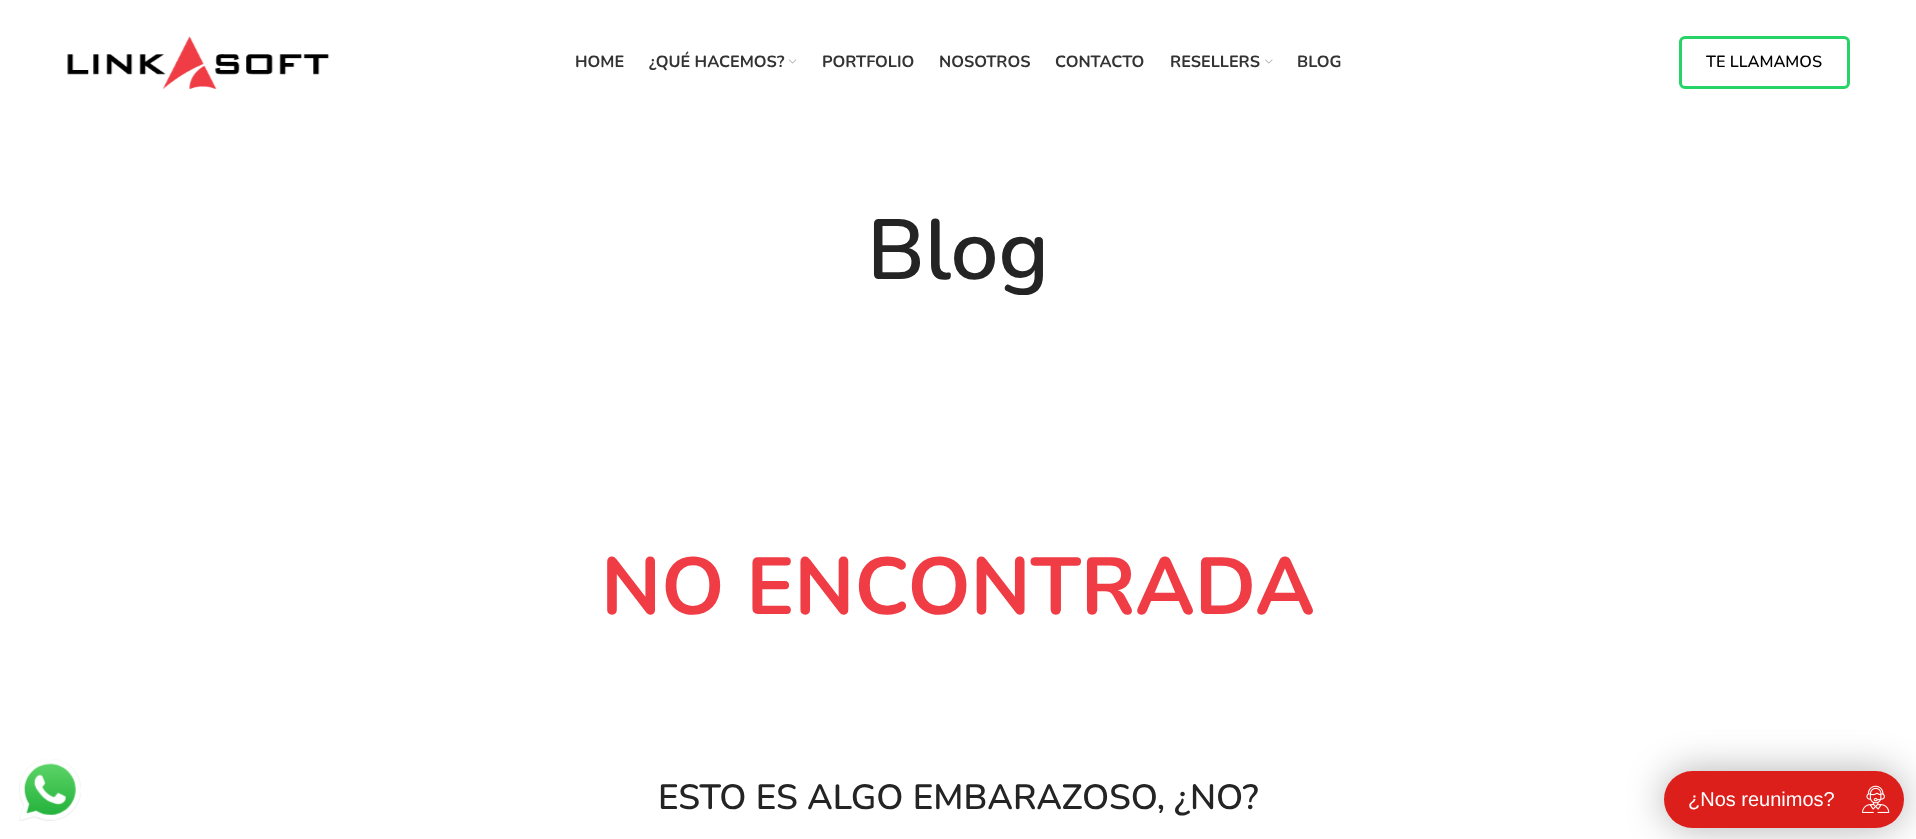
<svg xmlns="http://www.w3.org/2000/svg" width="1916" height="839">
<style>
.a{font:bold 16.25px Nunito;fill:#333}
.b{font:600 16.25px Nunito;fill:#000}
.c{font:600 85px Nunito;fill:#242424}
.d{font:bold 80.5px Nunito;fill:#ef3c45}
.e{font:600 35px Nunito;fill:#242424}
.f{font:20px Liberation Sans;fill:#fff}
</style>
<rect width="100%" height="100%" fill="#fff"/>
<image href="1.png" x="19" y="759" width="62" height="62"/>
<image href="2.png" x="67" y="36" width="263" height="53"/>
<image href="3.png" x="788" y="59" width="9" height="5"/>
<image href="4.png" x="1265" y="59" width="8" height="5"/>
<rect fill="none" stroke="#25d366" stroke-width="3" x="1680.5" y="37.5" width="168" height="50" rx="4.5"/>
<rect fill="#0000004d" filter="blur(19px)" x="1664" y="771" width="240" height="57" rx="28.5"/>
<rect fill="#dd1f1b" x="1664" y="771" width="240" height="57" rx="28.5"/>
<image href="5.png" x="1862" y="785" width="28" height="28"/>
<text class="a" x="575" y="67">HOME</text>
<text class="a" x="649" y="67">¿QUÉ HACEMOS?</text>
<text class="a" x="822" y="67">PORTFOLIO</text>
<text class="a" x="939" y="67">NOSOTROS</text>
<text class="a" x="1055" y="67">CONTACTO</text>
<text class="a" x="1170" y="67">RESELLERS</text>
<text class="a" x="1297" y="67">BLOG</text>
<text class="b" x="1706" y="67">TE LLAMAMOS</text>
<text class="c" x="867" y="279">Blog</text>
<text class="d" x="601" y="614">NO ENCONTRADA</text>
<text class="e" x="658" y="809">ESTO ES ALGO EMBARAZOSO, ¿NO?</text>
<text class="f" x="1688" y="806">¿Nos reunimos?</text>
</svg>
